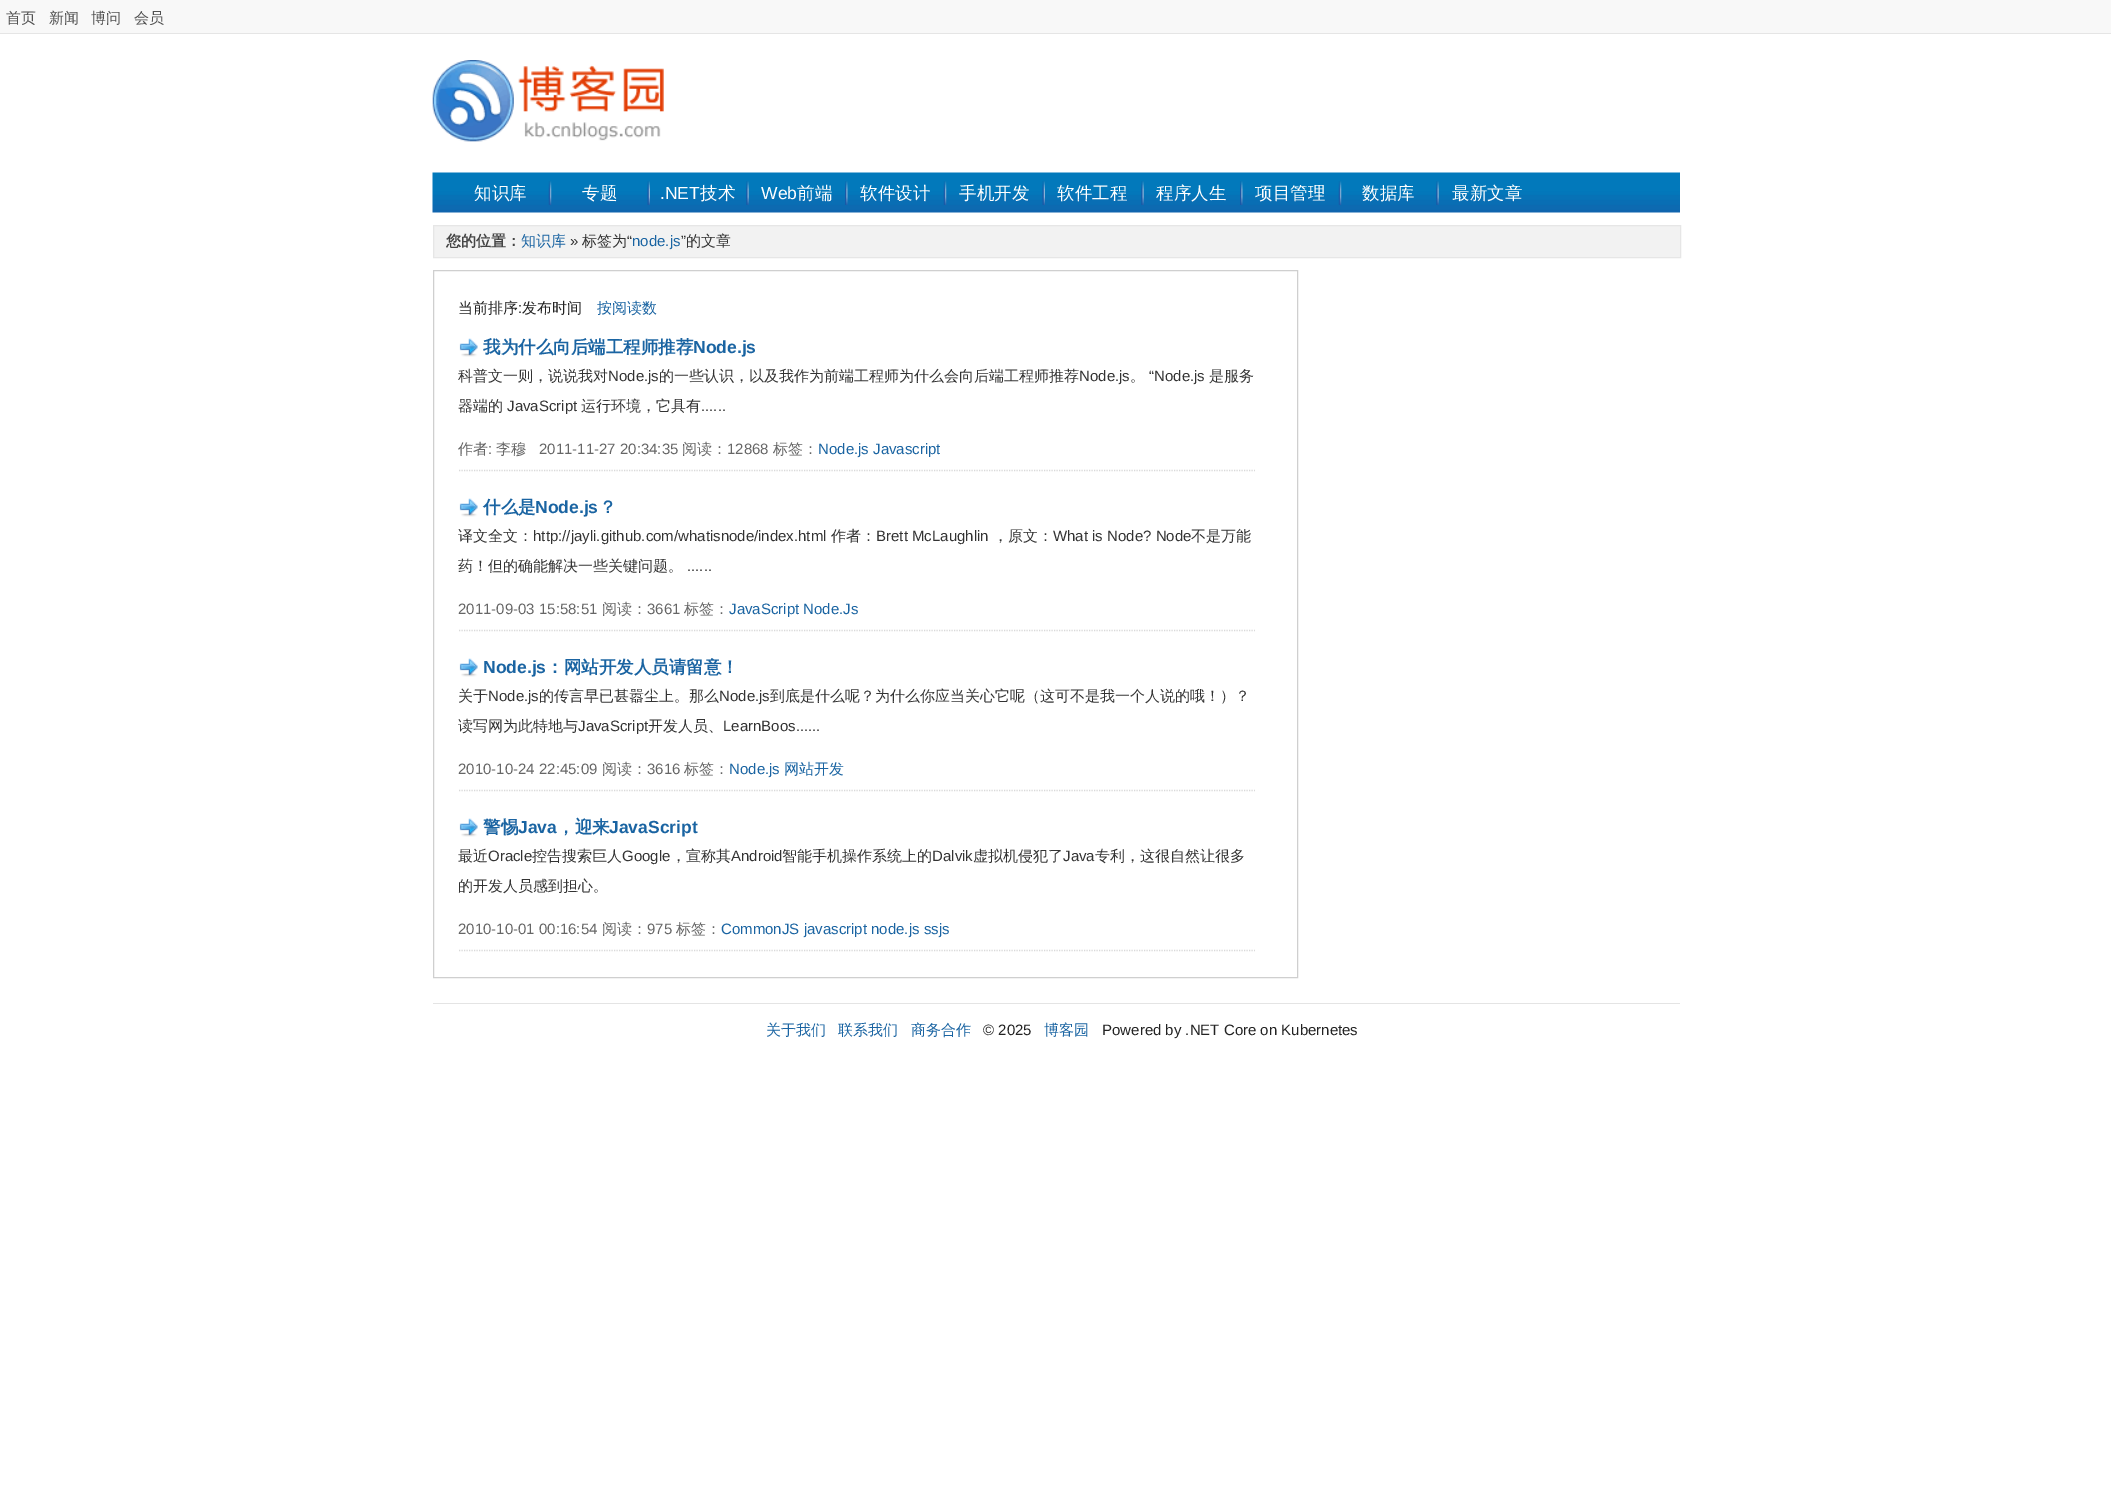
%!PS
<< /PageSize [2111 1507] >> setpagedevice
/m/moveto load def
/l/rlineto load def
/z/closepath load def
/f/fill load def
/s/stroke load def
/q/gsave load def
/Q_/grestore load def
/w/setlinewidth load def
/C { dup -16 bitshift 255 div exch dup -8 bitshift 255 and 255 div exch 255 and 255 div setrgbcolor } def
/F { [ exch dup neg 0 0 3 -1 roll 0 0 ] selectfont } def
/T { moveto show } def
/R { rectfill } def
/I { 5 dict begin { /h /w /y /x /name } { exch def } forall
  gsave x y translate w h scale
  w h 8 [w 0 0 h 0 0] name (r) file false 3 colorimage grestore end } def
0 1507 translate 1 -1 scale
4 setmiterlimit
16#FFFFFF C
0 0 2111 1507 R
16#F8F8F8 C
0 0 2111 33 R
16#E5E5E5 C
0 33 2111 1 R
/WenQuanYiZenHei-Medium 15 F
16#525252 C
(首页) 6 23 T
(新闻) 49 23 T
(博问) 91 23 T
(会员) 134 23 T
(1.rgb) 432 60 232 82 I
(2.rgb) 432 172 1248 41 I
/WenQuanYiZenHei-Medium 17.5 F
16#FFFFFF C
(知识库) 474 199 T
(3.rgb) 548 181 4 24 I
(专题) 582 199 T
(4.rgb) 647 181 3 24 I
/LiberationSans-Regular 17.5 F
(.NET) 660 199 T
/WenQuanYiZenHei-Medium 17.5 F
(技术) 700 199 T
(5.rgb) 746 181 3 24 I
/LiberationSans-Regular 17.5 F
(Web) 761 199 T
/WenQuanYiZenHei-Medium 17.5 F
(前端) 797 199 T
(6.rgb) 845 181 3 24 I
(软件设计) 860 199 T
(3.rgb) 943 181 4 24 I
(手机开发) 959 199 T
(4.rgb) 1042 181 3 24 I
(软件工程) 1057 199 T
(5.rgb) 1141 181 3 24 I
(程序人生) 1156 199 T
(6.rgb) 1240 181 3 24 I
(项目管理) 1255 199 T
(3.rgb) 1338 181 4 24 I
(数据库) 1362 199 T
(5.rgb) 1436 181 3 24 I
(最新文章) 1452 199 T
16#F2F2F2 C
433.5 225.5 m 1247 0 l 0 32 l -1247 0 l z q f Q_
16#E6E6E6 C
s
/WenQuanYiZenHei-Bold 15 F
16#454545 C
(您的位置：) 446 246 T
/WenQuanYiZenHei-Medium 15 F
16#1A64A2 C
(知识库) 521 246 T
16#333333 C
(标签为) 582 246 T
/LiberationSans-Regular 15 F
(“) 627 246 T
16#1A64A2 C
(node.js) 632 246 T
16#333333 C
(”) 681 246 T
/WenQuanYiZenHei-Medium 15 F
(的文章) 686 246 T
/LiberationSans-Regular 15 F
(») 570 246 T
16#CFCFCF C
433.5 270.5 864 707 rectstroke
/WenQuanYiZenHei-Medium 15 F
16#232323 C
(当前排序) 458 313 T
/LiberationSans-Regular 15 F
(:) 518 313 T
/WenQuanYiZenHei-Medium 15 F
(发布时间) 522 313 T
16#1A64A2 C
(按阅读数) 597 313 T
16#D9D9D9 C
1.2 w
[1.25 1.25] 0 setdash
459 470.5 m 796 0 l s
(7.rgb) 459 338 19 19 I
/WenQuanYiZenHei-Bold 17.5 F
16#1A64A2 C
(我为什么向后端工程师推荐) 483 353 T
/LiberationSans-Bold 17.5 F
(Node.js) 693 353 T
/WenQuanYiZenHei-Medium 15 F
16#333333 C
(科普文一则，说说我对) 458 381 T
/LiberationSans-Regular 15 F
(Node.js) 608 381 T
/WenQuanYiZenHei-Medium 15 F
(的一些认识，以及我作为前端工程师为什么会向后端工程师推荐) 659 381 T
/LiberationSans-Regular 15 F
(Node.js) 1079 381 T
/WenQuanYiZenHei-Medium 15 F
(。) 1130 381 T
/LiberationSans-Regular 15 F
(“Node.js) 1149 381 T
/WenQuanYiZenHei-Medium 15 F
(是服务) 1209 381 T
(器端的) 458 411 T
/LiberationSans-Regular 15 F
(JavaScript) 507 411 T
/WenQuanYiZenHei-Medium 15 F
(运行环境，它具有) 581 411 T
/LiberationSans-Regular 15 F
(......) 701 411 T
/WenQuanYiZenHei-Medium 15 F
16#666666 C
(作者) 458 454 T
/LiberationSans-Regular 15 F
(:) 488 454 T
/WenQuanYiZenHei-Medium 15 F
(李穆) 496 454 T
/LiberationSans-Regular 15 F
(2011-11-27 20:34:35) 539 454 T
/WenQuanYiZenHei-Medium 15 F
(阅读：) 682 454 T
/LiberationSans-Regular 15 F
(12868) 727 454 T
/WenQuanYiZenHei-Medium 15 F
(标签：) 773 454 T
/LiberationSans-Regular 15 F
16#1A64A2 C
(Node.js Javascript) 818 454 T
16#D9D9D9 C
459 630.5 m 796 0 l s
(7.rgb) 459 498 19 19 I
/WenQuanYiZenHei-Bold 17.5 F
16#1A64A2 C
(什么是) 483 513 T
/LiberationSans-Bold 17.5 F
(Node.js) 535 513 T
/WenQuanYiZenHei-Bold 17.5 F
(？) 599 513 T
/WenQuanYiZenHei-Medium 15 F
16#333333 C
(译文全文：) 458 541 T
/LiberationSans-Regular 15 F
(http://jayli.github.com/whatisnode/index.html) 533 541 T
/WenQuanYiZenHei-Medium 15 F
(作者：) 831 541 T
/LiberationSans-Regular 15 F
(Brett McLaughlin) 876 541 T
/WenQuanYiZenHei-Medium 15 F
(，原文：) 993 541 T
/LiberationSans-Regular 15 F
(What is Node? Node) 1053 541 T
/WenQuanYiZenHei-Medium 15 F
(不是万能) 1191 541 T
(药！但的确能解决一些关键问题。) 458 571 T
/LiberationSans-Regular 15 F
(......) 687 571 T
16#666666 C
(2011-09-03 15:58:51) 458 614 T
/WenQuanYiZenHei-Medium 15 F
(阅读：) 602 614 T
/LiberationSans-Regular 15 F
(3661) 647 614 T
/WenQuanYiZenHei-Medium 15 F
(标签：) 684 614 T
/LiberationSans-Regular 15 F
16#1A64A2 C
(JavaScript Node.Js) 729 614 T
16#D9D9D9 C
459 790.5 m 796 0 l s
(7.rgb) 459 658 19 19 I
/LiberationSans-Bold 17.5 F
16#1A64A2 C
(Node.js) 483 673 T
/WenQuanYiZenHei-Bold 17.5 F
(：网站开发人员请留意！) 546 673 T
/WenQuanYiZenHei-Medium 15 F
16#333333 C
(关于) 458 701 T
/LiberationSans-Regular 15 F
(Node.js) 488 701 T
/WenQuanYiZenHei-Medium 15 F
(的传言早已甚嚣尘上。那么) 539 701 T
/LiberationSans-Regular 15 F
(Node.js) 719 701 T
/WenQuanYiZenHei-Medium 15 F
(到底是什么呢？为什么你应当关心它呢（这可不是我一个人说的哦！）？) 770 701 T
(读写网为此特地与) 458 731 T
/LiberationSans-Regular 15 F
(JavaScript) 578 731 T
/WenQuanYiZenHei-Medium 15 F
(开发人员、) 648 731 T
/LiberationSans-Regular 15 F
(LearnBoos......) 723 731 T
16#666666 C
(2010-10-24 22:45:09) 458 774 T
/WenQuanYiZenHei-Medium 15 F
(阅读：) 602 774 T
/LiberationSans-Regular 15 F
(3616) 647 774 T
/WenQuanYiZenHei-Medium 15 F
(标签：) 684 774 T
/LiberationSans-Regular 15 F
16#1A64A2 C
(Node.js) 729 774 T
/WenQuanYiZenHei-Medium 15 F
(网站开发) 784 774 T
16#D9D9D9 C
459 950.5 m 796 0 l s
(7.rgb) 459 818 19 19 I
/WenQuanYiZenHei-Bold 17.5 F
16#1A64A2 C
(警惕) 483 833 T
/LiberationSans-Bold 17.5 F
(Java) 518 833 T
/WenQuanYiZenHei-Bold 17.5 F
(，迎来) 557 833 T
/LiberationSans-Bold 17.5 F
(JavaScript) 609 833 T
/WenQuanYiZenHei-Medium 15 F
16#333333 C
(最近) 458 861 T
/LiberationSans-Regular 15 F
(Oracle) 488 861 T
/WenQuanYiZenHei-Medium 15 F
(控告搜索巨人) 532 861 T
/LiberationSans-Regular 15 F
(Google) 622 861 T
/WenQuanYiZenHei-Medium 15 F
(，宣称其) 671 861 T
/LiberationSans-Regular 15 F
(Android) 731 861 T
/WenQuanYiZenHei-Medium 15 F
(智能手机操作系统上的) 782 861 T
/LiberationSans-Regular 15 F
(Dalvik) 932 861 T
/WenQuanYiZenHei-Medium 15 F
(虚拟机侵犯了) 973 861 T
/LiberationSans-Regular 15 F
(Java) 1063 861 T
/WenQuanYiZenHei-Medium 15 F
(专利，这很自然让很多) 1095 861 T
(的开发人员感到担心。) 458 891 T
/LiberationSans-Regular 15 F
16#666666 C
(2010-10-01 00:16:54) 458 934 T
/WenQuanYiZenHei-Medium 15 F
(阅读：) 602 934 T
/LiberationSans-Regular 15 F
(975) 647 934 T
/WenQuanYiZenHei-Medium 15 F
(标签：) 676 934 T
/LiberationSans-Regular 15 F
16#1A64A2 C
(CommonJS javascript node.js ssjs) 721 934 T
16#E4E4E4 C
433 1003 1247 1 R
/WenQuanYiZenHei-Medium 15 F
16#1A64A2 C
(关于我们) 766 1035 T
(联系我们) 838 1035 T
(商务合作) 911 1035 T
/LiberationSans-Regular 15 F
16#232323 C
(© 2025) 983 1035 T
/WenQuanYiZenHei-Medium 15 F
16#1A64A2 C
(博客园) 1044 1035 T
/LiberationSans-Regular 15 F
16#232323 C
(Powered by .NET Core on Kubernetes) 1102 1035 T
showpage
